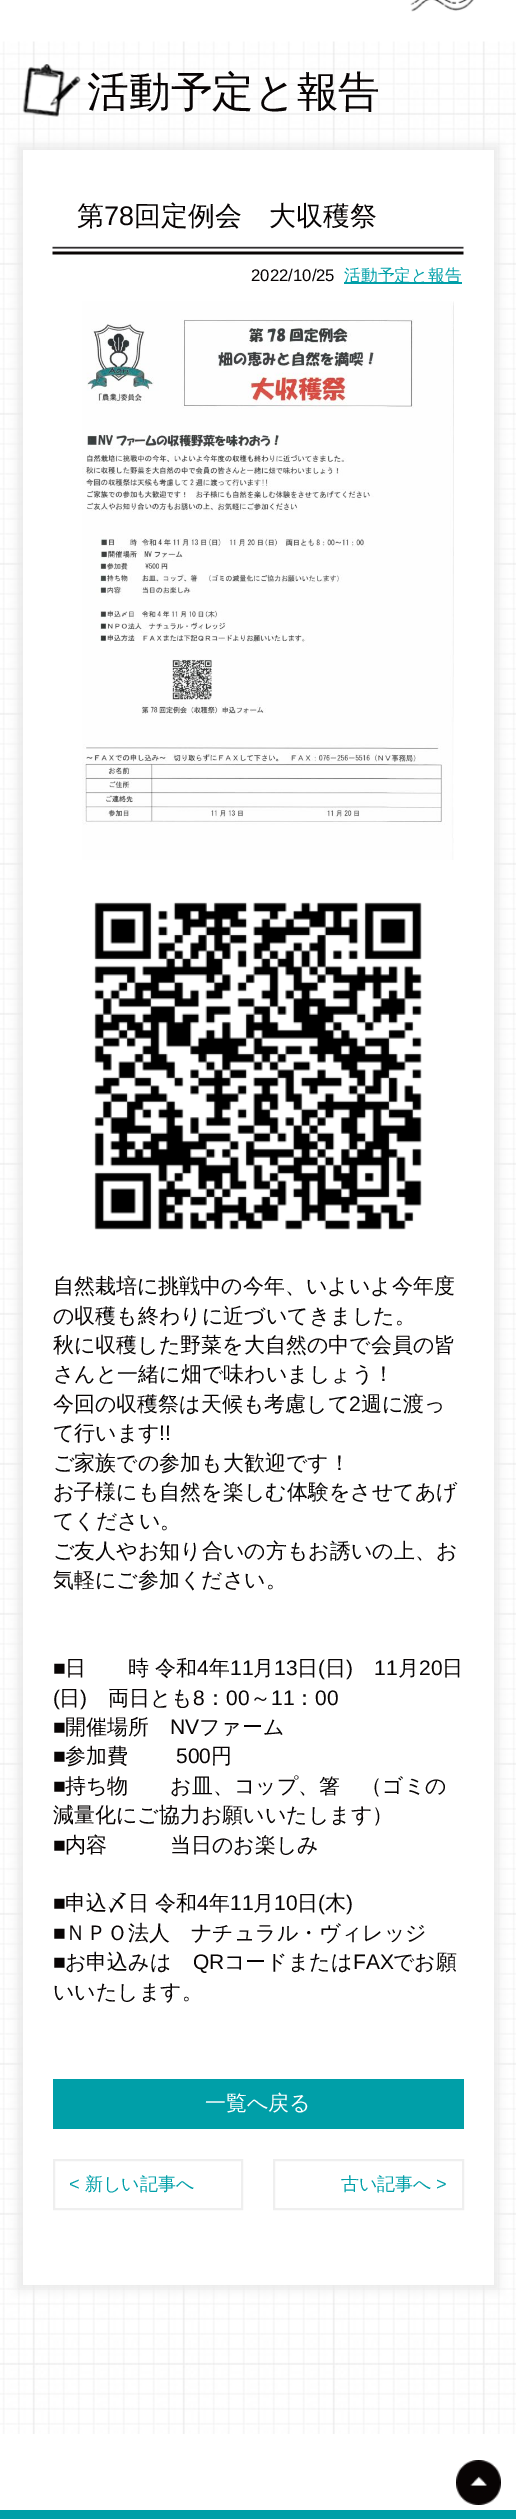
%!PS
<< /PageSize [516 2519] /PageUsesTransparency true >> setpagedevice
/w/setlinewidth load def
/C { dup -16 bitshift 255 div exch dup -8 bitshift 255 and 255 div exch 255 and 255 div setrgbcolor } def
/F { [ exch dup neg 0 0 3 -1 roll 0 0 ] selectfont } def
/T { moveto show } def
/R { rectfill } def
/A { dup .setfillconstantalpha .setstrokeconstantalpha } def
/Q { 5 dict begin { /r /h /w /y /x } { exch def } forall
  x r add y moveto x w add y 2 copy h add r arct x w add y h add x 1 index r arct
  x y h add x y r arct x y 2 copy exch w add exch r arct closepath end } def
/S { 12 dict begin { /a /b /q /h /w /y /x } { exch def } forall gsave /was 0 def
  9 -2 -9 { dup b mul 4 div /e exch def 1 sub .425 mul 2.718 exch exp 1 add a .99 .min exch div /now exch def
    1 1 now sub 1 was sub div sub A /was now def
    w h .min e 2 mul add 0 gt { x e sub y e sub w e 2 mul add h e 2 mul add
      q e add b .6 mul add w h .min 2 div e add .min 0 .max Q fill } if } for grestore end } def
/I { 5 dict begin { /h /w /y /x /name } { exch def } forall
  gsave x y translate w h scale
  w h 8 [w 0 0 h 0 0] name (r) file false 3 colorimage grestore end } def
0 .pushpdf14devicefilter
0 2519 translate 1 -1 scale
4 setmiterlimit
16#FFFFFF C
0 0 516 2519 R
(1.rgb) 410 0 64 12 I
(2.rgb) 0 41 516 2393 I
(3.rgb) 22 64 59 53 I
/WenQuanYiZenHei-Medium 41.75 F
16#080404 C
(活動予定と報告) 87 106 T
16#E9E9E9 C
18 146 480 2143 0 4.5 1 S
16#FFFFFF C
23 150 471 2135 R
(4.rgb) 52 246 412 9 I
/WenQuanYiZenHei-Medium 27 F
16#080404 C
(第) 77 225 T
/LiberationSans-Regular 27 F
(78) 104 225 T
/WenQuanYiZenHei-Medium 27 F
(回定例会　大収穫祭) 134 225 T
/LiberationSans-Regular 16.75 F
(2022/10/25) 251 281 T
16#009FA8 C
344 282 118 2 R
/WenQuanYiZenHei-Medium 16.75 F
(活動予定と報告) 344 281 T
(5.rgb) 82 301 372 559 I
(6.rgb) 94 902 328 328 I
/WenQuanYiZenHei-Medium 21 F
16#080404 C
(自然栽培に挑戦中の今年、いよいよ今年度) 53 1293 T
(の収穫も終わりに近づいてきました。) 53 1323 T
(秋に収穫した野菜を大自然の中で会員の皆) 53 1352 T
(さんと一緒に畑で味わいましょう！) 53 1381 T
(今回の収穫祭は天候も考慮して) 53 1411 T
/LiberationSans-Regular 21 F
(2) 349 1411 T
/WenQuanYiZenHei-Medium 21 F
(週に渡っ) 361 1411 T
(て行います) 53 1440 T
/LiberationSans-Regular 21 F
(!!) 159 1440 T
/WenQuanYiZenHei-Medium 21 F
(ご家族での参加も大歓迎です！) 53 1470 T
(お子様にも自然を楽しむ体験をさせてあげ) 53 1499 T
(てください。) 53 1528 T
(ご友人やお知り合いの方もお誘いの上、お) 53 1558 T
(気軽にご参加ください。) 53 1587 T
/LiberationSans-Regular 21 F
(■) 53 1675 T
/WenQuanYiZenHei-Medium 21 F
(日　　時 令和) 65 1675 T
/LiberationSans-Regular 21 F
(4) 197 1675 T
/WenQuanYiZenHei-Medium 21 F
(年) 209 1675 T
/LiberationSans-Regular 21 F
(11) 230 1675 T
/WenQuanYiZenHei-Medium 21 F
(月) 253 1675 T
/LiberationSans-Regular 21 F
(13) 274 1675 T
/WenQuanYiZenHei-Medium 21 F
(日) 297 1675 T
/LiberationSans-Regular 21 F
(\() 318 1675 T
/WenQuanYiZenHei-Medium 21 F
(日) 325 1675 T
/LiberationSans-Regular 21 F
(\)) 346 1675 T
(11) 374 1675 T
/WenQuanYiZenHei-Medium 21 F
(月) 398 1675 T
/LiberationSans-Regular 21 F
(20) 419 1675 T
/WenQuanYiZenHei-Medium 21 F
(日) 442 1675 T
/LiberationSans-Regular 21 F
(\() 53 1705 T
/WenQuanYiZenHei-Medium 21 F
(日) 59 1705 T
/LiberationSans-Regular 21 F
(\)) 80 1705 T
/WenQuanYiZenHei-Medium 21 F
(両日とも) 108 1705 T
/LiberationSans-Regular 21 F
(8) 193 1705 T
/WenQuanYiZenHei-Medium 21 F
(：) 205 1705 T
/LiberationSans-Regular 21 F
(00) 226 1705 T
/WenQuanYiZenHei-Medium 21 F
(～) 250 1705 T
/LiberationSans-Regular 21 F
(11) 271 1705 T
/WenQuanYiZenHei-Medium 21 F
(：) 294 1705 T
/LiberationSans-Regular 21 F
(00) 315 1705 T
(■) 53 1734 T
/WenQuanYiZenHei-Medium 21 F
(開催場所) 65 1734 T
/LiberationSans-Regular 21 F
(NV) 170 1734 T
/WenQuanYiZenHei-Medium 21 F
(ファーム) 199 1734 T
/LiberationSans-Regular 21 F
(■) 53 1763 T
/WenQuanYiZenHei-Medium 21 F
(参加費) 65 1763 T
/LiberationSans-Regular 21 F
(500) 176 1763 T
/WenQuanYiZenHei-Medium 21 F
(円) 211 1763 T
/LiberationSans-Regular 21 F
(■) 53 1793 T
/WenQuanYiZenHei-Medium 21 F
(持ち物　　お皿、コップ、箸　（ゴミの) 65 1793 T
(減量化にご協力お願いいたします）) 53 1822 T
/LiberationSans-Regular 21 F
(■) 53 1852 T
/WenQuanYiZenHei-Medium 21 F
(内容　　　当日のお楽しみ) 65 1852 T
/LiberationSans-Regular 21 F
(■) 53 1910 T
/WenQuanYiZenHei-Medium 21 F
(申込〆日 令和) 65 1910 T
/LiberationSans-Regular 21 F
(4) 197 1910 T
/WenQuanYiZenHei-Medium 21 F
(年) 209 1910 T
/LiberationSans-Regular 21 F
(11) 230 1910 T
/WenQuanYiZenHei-Medium 21 F
(月) 253 1910 T
/LiberationSans-Regular 21 F
(10) 274 1910 T
/WenQuanYiZenHei-Medium 21 F
(日) 297 1910 T
/LiberationSans-Regular 21 F
(\() 318 1910 T
/WenQuanYiZenHei-Medium 21 F
(木) 325 1910 T
/LiberationSans-Regular 21 F
(\)) 346 1910 T
(■) 53 1940 T
/WenQuanYiZenHei-Medium 21 F
(ＮＰＯ法人　ナチュラル・ヴィレッジ) 65 1940 T
/LiberationSans-Regular 21 F
(■) 53 1969 T
/WenQuanYiZenHei-Medium 21 F
(お申込みは) 65 1969 T
/LiberationSans-Regular 21 F
(QR) 193 1969 T
/WenQuanYiZenHei-Medium 21 F
(コードまたは) 224 1969 T
/LiberationSans-Regular 21 F
(FAX) 353 1969 T
/WenQuanYiZenHei-Medium 21 F
(でお願) 393 1969 T
(いいたします。) 53 1999 T
16#009FA8 C
53 2079 411 50 R
16#FFFFFF C
(一覧へ戻る) 205 2110 T
16#EFEFEF C
2 w
54 2160 188 49 rectstroke
/LiberationSans-Regular 18 F
16#009FA8 C
(<) 69 2190 T
/WenQuanYiZenHei-Medium 18 F
(新しい記事へ) 85 2190 T
16#EFEFEF C
274 2160 189 49 rectstroke
16#009FA8 C
(古い記事へ) 341 2190 T
/LiberationSans-Regular 18 F
(>) 436 2190 T
(7.rgb) 456 2460 45 45 I
0 2510 516 9 R
.poppdf14devicefilter showpage
